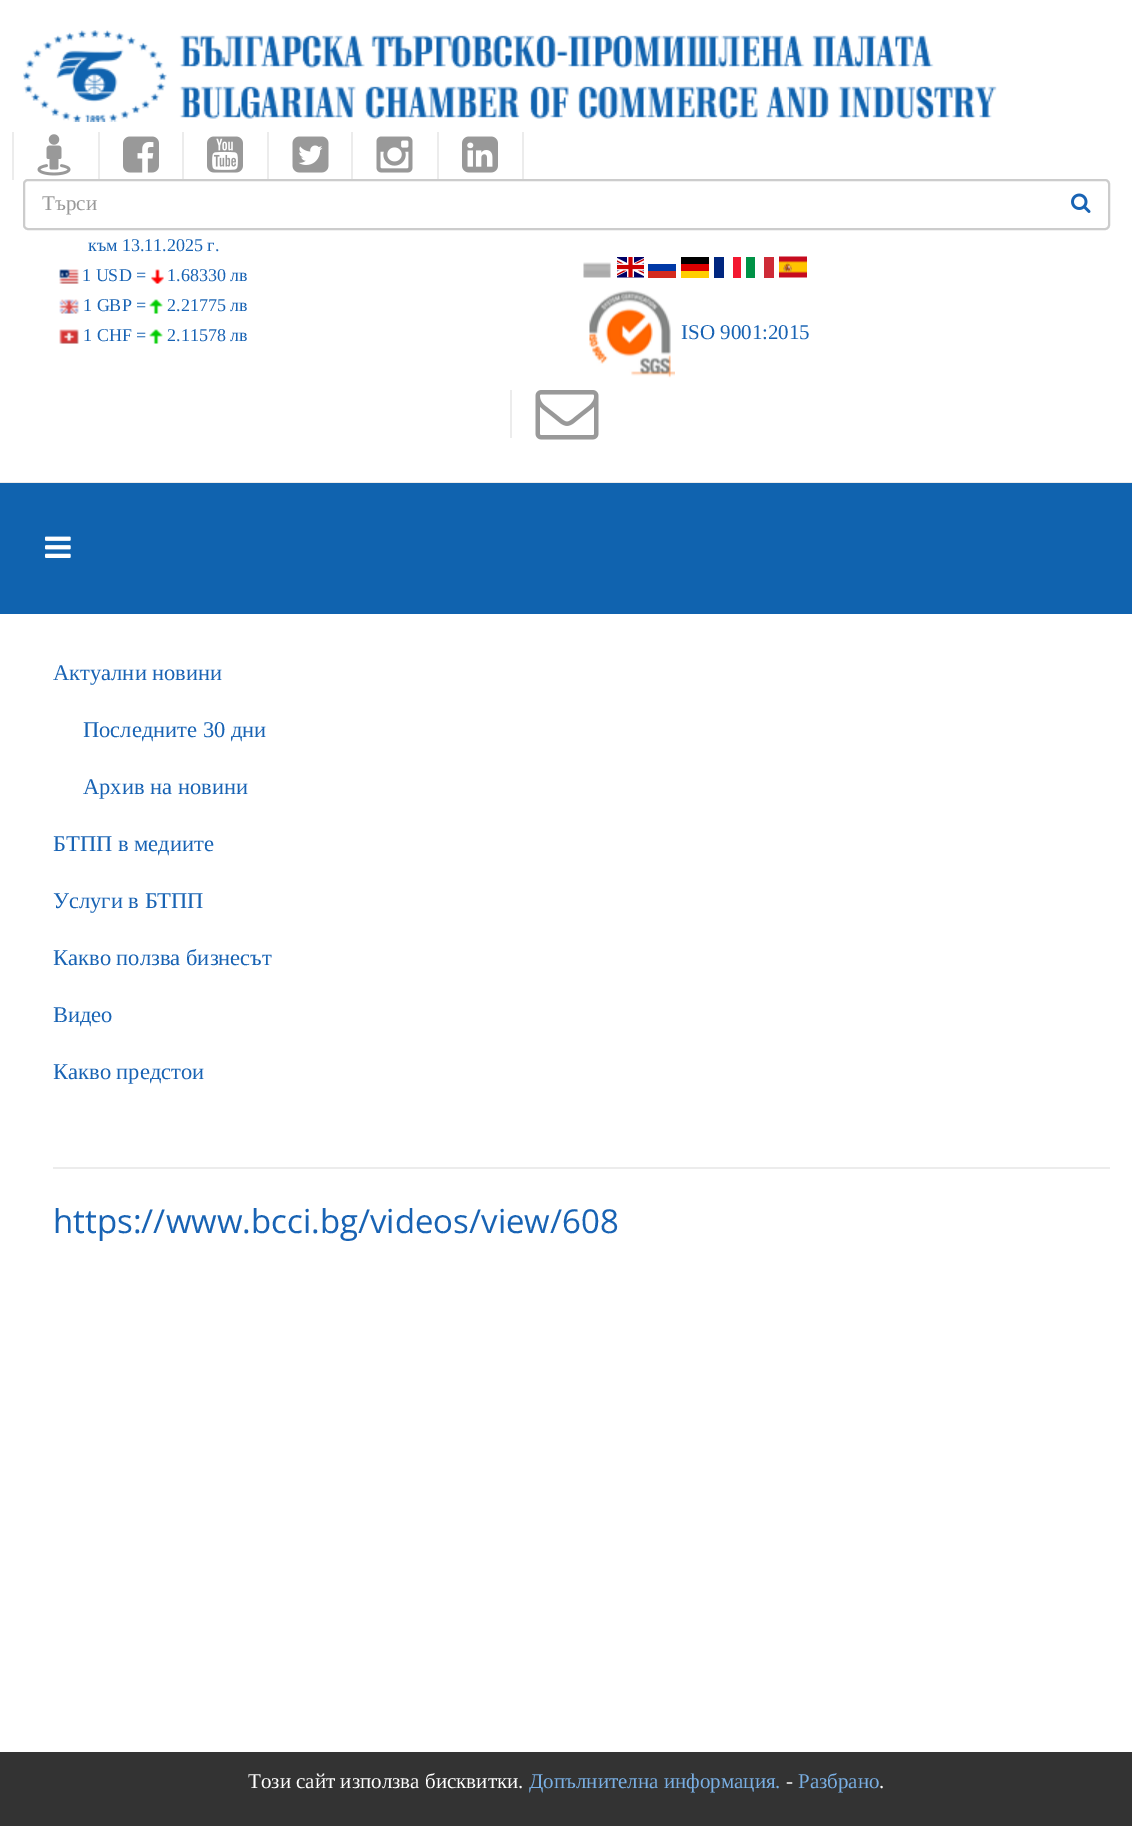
%!PS
<< /PageSize [1132 1826] >> setpagedevice
/f/fill load def
/s/stroke load def
/q/gsave load def
/Q_/grestore load def
/w/setlinewidth load def
/C { dup -16 bitshift 255 div exch dup -8 bitshift 255 and 255 div exch 255 and 255 div setrgbcolor } def
/F { [ exch dup neg 0 0 3 -1 roll 0 0 ] selectfont } def
/T { moveto show } def
/R { rectfill } def
/Q { 5 dict begin { /r /h /w /y /x } { exch def } forall
  x r add y moveto x w add y 2 copy h add r arct x w add y h add x 1 index r arct
  x y h add x y r arct x y 2 copy exch w add exch r arct closepath end } def
/I { 5 dict begin { /h /w /y /x /name } { exch def } forall
  gsave x y translate w h scale
  w h 8 [w 0 0 h 0 0] name (r) file false 3 colorimage grestore end } def
0 1826 translate 1 -1 scale
4 setmiterlimit
16#FFFFFF C
0 0 1132 1826 R
16#ECECEC C
0 482 1132 1 R
(1.rgb) 23 30 974 92 I
12 132 2 48 R
(2.rgb) 37 134 34 42 I
98 132 2 48 R
(3.rgb) 123 136 36 37 I
182 132 2 48 R
(4.rgb) 207 136 36 37 I
267 132 2 48 R
(5.rgb) 292 136 37 37 I
351 132 2 48 R
(6.rgb) 376 136 37 37 I
522 132 2 48 R
437 132 2 48 R
(7.rgb) 462 136 36 37 I
16#FFFFFF C
24 180 1085 49 4 Q q f Q_
16#CCCCCC C
2 w
s
/LiberationSerif-Regular 21 F
16#999999 C
(Търси) 42 210 T
(8.rgb) 1071 193 20 20 I
/LiberationSerif-Regular 18 F
16#1863B4 C
(към 13.11.2025 г.) 88 251 T
(9.rgb) 59 269 20 15 I
(1 USD =) 82 281 T
(10.rgb) 151 269 13 15 I
(1.68330 лв) 167 281 T
(11.rgb) 59 299 20 15 I
(1 GBP =) 83 311 T
(12.rgb) 149 299 14 15 I
(2.21775 лв) 167 311 T
(13.rgb) 59 329 20 15 I
(1 CHF =) 83 341 T
(14.rgb) 149 329 14 15 I
(2.11578 лв) 167 341 T
(15.rgb) 583 262 28 16 I
(16.rgb) 617 257 27 21 I
16#0039A6 C
648 264 28 7 R
16#D52B1E C
648 271 28 7 R
16#FFCE00 C
681 271 28 7 R
16#000000 C
681 257 28 7 R
16#DD0000 C
681 264 28 7 R
16#00267F C
714 257 10 21 R
16#F31830 C
733 257 8 21 R
16#009246 C
746 257 9 21 R
16#CE2B37 C
764 257 10 21 R
(17.rgb) 779 256 28 22 I
(18.rgb) 589 290 86 88 I
/LiberationSerif-Regular 21 F
16#1863B4 C
(ISO 9001:2015) 681 339 T
16#ECECEC C
510 390 2 48 R
(19.rgb) 535 390 64 50 I
16#1063AF C
0 483 1132 131 R
(20.rgb) 45 536 26 22 I
16#ECECEC C
53 1167 1057 2 R
/LiberationSerif-Regular 22.5 F
16#1863B4 C
(Актуални новини) 53 680 T
(Последните 30 дни) 83 737 T
(Архив на новини) 83 794 T
(БTПП в медиите) 53 851 T
(Услуги в БТПП) 53 908 T
(Какво ползва бизнесът) 53 965 T
(Видео) 53 1022 T
(Какво предстои) 53 1079 T
/OpenSans-Regular 33 F
(https://www.bcci.bg/videos/view/608) 53 1233 T
16#333333 C
0 1752 1132 74 R
/LiberationSerif-Regular 21 F
16#FFFFFF C
(Този сайт използва бисквитки.) 248 1788 T
16#79AFE4 C
(Допълнителна информация.) 529 1788 T
16#FFFFFF C
(-) 786 1788 T
16#79AFE4 C
(Разбрано) 798 1788 T
16#FFFFFF C
(.) 879 1788 T
showpage
